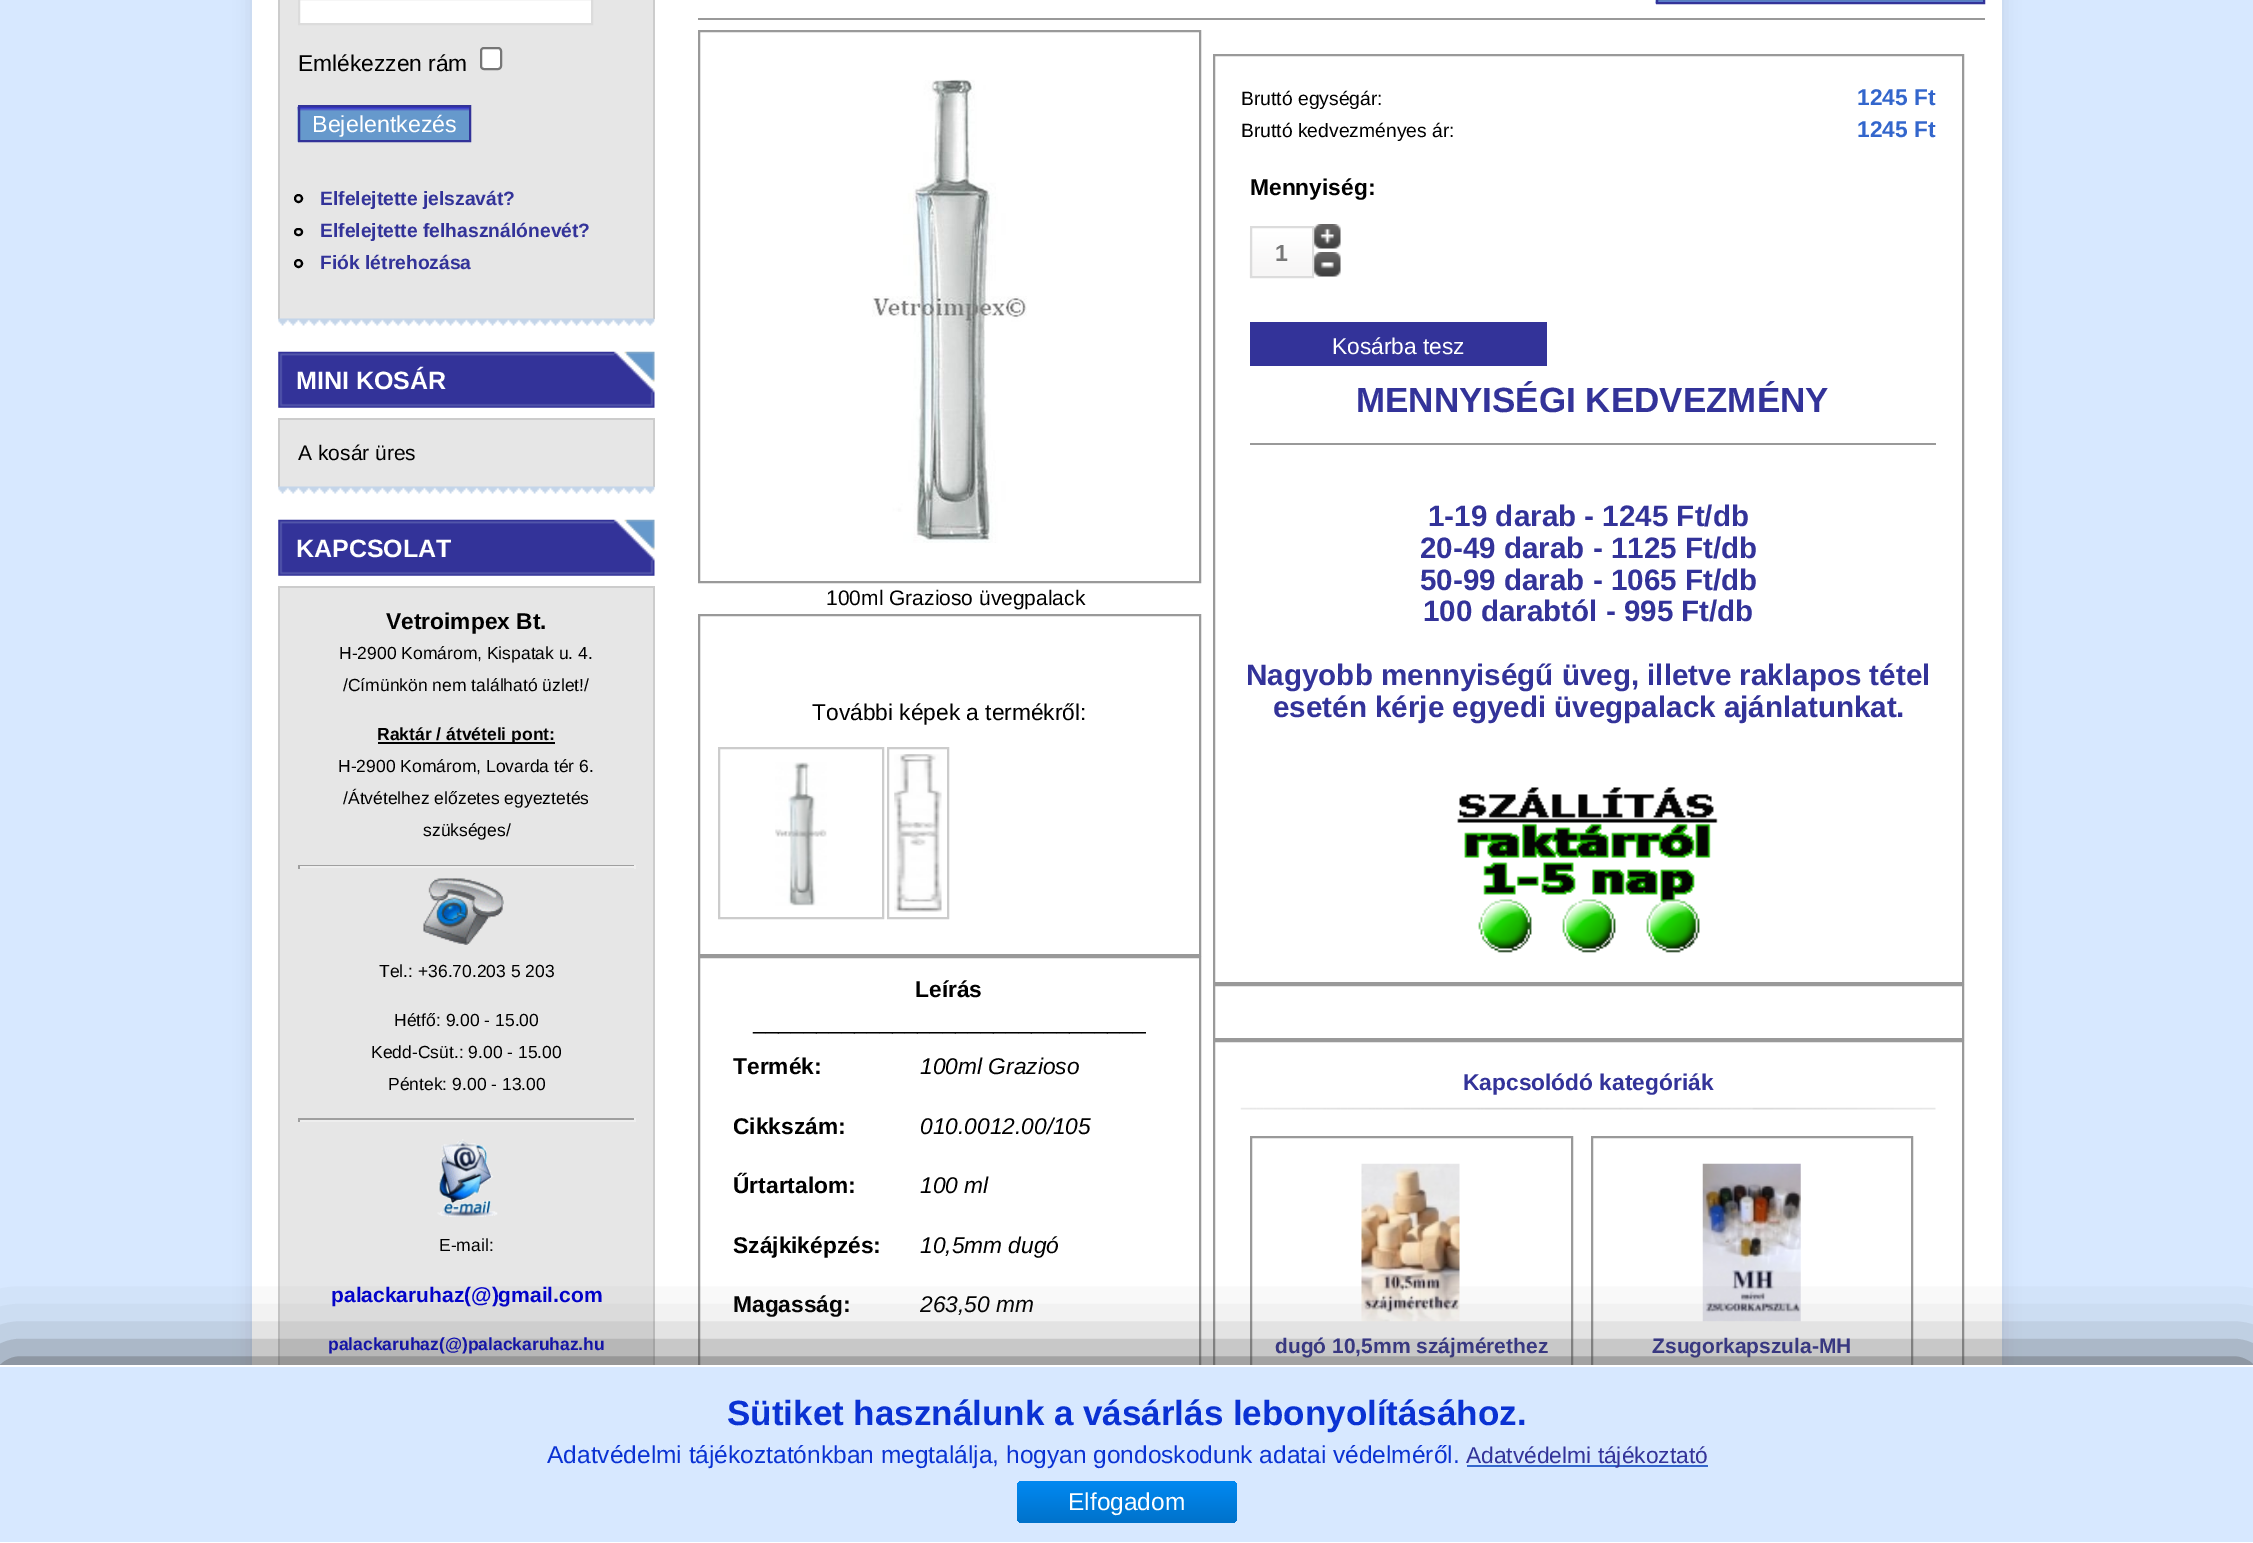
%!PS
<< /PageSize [2253 1543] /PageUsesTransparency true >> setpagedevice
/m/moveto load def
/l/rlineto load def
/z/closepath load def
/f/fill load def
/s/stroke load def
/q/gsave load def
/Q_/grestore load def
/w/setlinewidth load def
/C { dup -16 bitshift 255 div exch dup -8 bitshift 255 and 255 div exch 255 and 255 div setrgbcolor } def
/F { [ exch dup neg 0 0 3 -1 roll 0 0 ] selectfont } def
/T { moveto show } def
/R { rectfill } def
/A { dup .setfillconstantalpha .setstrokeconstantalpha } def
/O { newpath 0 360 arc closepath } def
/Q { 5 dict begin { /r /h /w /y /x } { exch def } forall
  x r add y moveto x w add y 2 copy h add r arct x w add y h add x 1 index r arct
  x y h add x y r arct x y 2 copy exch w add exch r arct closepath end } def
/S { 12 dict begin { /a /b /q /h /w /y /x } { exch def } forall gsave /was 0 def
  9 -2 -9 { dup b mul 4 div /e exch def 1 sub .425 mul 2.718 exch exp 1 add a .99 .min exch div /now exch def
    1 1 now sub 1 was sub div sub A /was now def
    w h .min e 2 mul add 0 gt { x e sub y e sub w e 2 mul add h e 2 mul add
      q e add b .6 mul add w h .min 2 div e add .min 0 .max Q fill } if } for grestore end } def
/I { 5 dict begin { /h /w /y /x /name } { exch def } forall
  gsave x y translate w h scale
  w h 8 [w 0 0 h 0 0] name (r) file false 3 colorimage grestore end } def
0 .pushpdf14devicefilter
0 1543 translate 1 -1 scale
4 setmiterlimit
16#D7E8FF C
0 0 2253 1543 R
16#000000 C
252 -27 1750 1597 0 9 .1 S
16#FFFFFF C
252 0 1750 1365 R
16#E6E6E6 C
280 0 373 319 R
16#CCCCCC C
653 0 2 319 R
278 0 2 319 R
16#FFFFFF C
299 -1 m 293 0 l 0 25 l -293 0 l z q f Q_
16#DCDCDC C
2 w
s
/LiberationSans-Regular 22.75 F
16#000000 C
(Emlékezzen rám) 298 71 T
16#FFFFFF C
481 48 20 21 3 Q q f Q_
16#767676 C
s
(1.rgb) 297 106 172 36 I
16#333399 C
299 106 171 35 rectstroke
/LiberationSans-Regular 23.25 F
16#FFFFFF C
(Bejelentkezés) 312 132 T
16#000000 C
298.5 198.5 3.5 O s
/LiberationSans-Bold 19.3 F
16#333399 C
(Elfelejtette jelszavát?) 320 205 T
16#000000 C
295 229 7 6 3 Q s
16#333399 C
(Elfelejtette felhasználónevét?) 320 237 T
16#000000 C
298.5 263.5 3.5 O s
16#333399 C
(Fiók létrehozása) 320 269 T
(2.rgb) 278 318 377 8 I
(3.rgb) 278 351 377 57 I
/LiberationSans-Bold 25 F
16#FFFFFF C
(MINI KOSÁR) 296 389 T
16#E6E6E6 C
280 420 373 67 R
16#CCCCCC C
278 418 377 2 R
653 418 2 69 R
278 418 2 69 R
/LiberationSans-Regular 21 F
16#000000 C
(A kosár üres) 298 460 T
(2.rgb) 278 486 377 8 I
(3.rgb) 278 519 377 57 I
/LiberationSans-Bold 25 F
16#FFFFFF C
(KAPCSOLAT) 296 557 T
16#E6E6E6 C
280 588 373 777 R
16#CCCCCC C
278 586 377 2 R
653 586 2 779 R
278 586 2 779 R
/LiberationSans-Bold 22.75 F
16#000000 C
(Vetroimpex Bt.) 386 629 T
/LiberationSans-Regular 17.5 F
(H-2900 Komárom, Kispatak u. 4.) 339 659 T
(/Címünkön nem található üzlet!/) 343 691 T
378 742 177 2 R
/LiberationSans-Bold 17.5 F
(Raktár / átvételi pont:) 377 740 T
/LiberationSans-Regular 17.5 F
(H-2900 Komárom, Lovarda tér 6.) 338 772 T
(/Átvételhez előzetes egyeztetés) 343 804 T
(szükséges/) 423 836 T
16#9F9F9F C
298 865 337 1 R
16#EEEEEE C
634 865 2 4 R
298 866 337 2 R
16#9F9F9F C
298 865 2 4 R
(4.rgb) 423 878 81 67 I
16#000000 C
(Tel.: +36.70.203 5 203) 379 977 T
(Hétfő: 9.00 - 15.00) 394 1026 T
(Kedd-Csüt.: 9.00 - 15.00) 371 1058 T
(Péntek: 9.00 - 13.00) 388 1090 T
16#9F9F9F C
298 1118 337 2 R
16#EEEEEE C
634 1118 2 4 R
298 1120 337 2 R
16#9F9F9F C
298 1118 2 4 R
(5.rgb) 437 1139 61 78 I
16#000000 C
(E-mail:) 439 1251 T
/LiberationSans-Bold 21 F
16#0000CD C
(palackaruhaz\(@\)gmail.com) 331 1302 T
/LiberationSans-Bold 17.5 F
(palackaruhaz\(@\)palackaruhaz.hu) 328 1350 T
(6.rgb) 1655 0 328 4 I
16#333399 C
1657 -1 327 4 rectstroke
16#999999 C
698 18 1287 2 R
699 31 501 551 rectstroke
(7.rgb) 872 79 155 464 I
/LiberationSans-Regular 21 F
16#000000 C
(100ml Grazioso üvegpalack) 826 605 T
16#999999 C
699 615 501 340 rectstroke
/LiberationSans-Regular 22.75 F
16#000000 C
(További képek a termékről:) 812 720 T
16#CCCCCC C
719 748 164 170 rectstroke
(8.rgb) 775 762 52 144 I
888 748 60 170 rectstroke
(9.rgb) 894 754 48 158 I
16#999999 C
699 957 501 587 rectstroke
/LiberationSans-Bold 22.75 F
16#000000 C
(Leírás) 915 997 T
/LiberationSans-Regular 22.75 F
(_______________________________) 753 1029 T
/LiberationSans-Bold 22.75 F
(Termék:) 733 1074 T
/LiberationSans-Italic 22.75 F
(100ml Grazioso) 920 1074 T
/LiberationSans-Bold 22.75 F
(Cikkszám:) 733 1134 T
/LiberationSans-Italic 22.75 F
(010.0012.00/105) 920 1134 T
/LiberationSans-Bold 22.75 F
(Űrtartalom:) 733 1193 T
/LiberationSans-Italic 22.75 F
(100 ml) 920 1193 T
/LiberationSans-Bold 22.75 F
(Szájkiképzés:) 733 1253 T
/LiberationSans-Italic 22.75 F
(10,5mm dugó) 920 1253 T
/LiberationSans-Bold 22.75 F
(Magasság:) 733 1312 T
/LiberationSans-Italic 22.75 F
(263,50 mm) 920 1312 T
16#999999 C
1214 55 749 928 rectstroke
/LiberationSans-Regular 19.3 F
16#000000 C
(Bruttó egységár:) 1241 105 T
/LiberationSans-Bold 22.75 F
16#3366CC C
(1245 Ft) 1857 105 T
/LiberationSans-Regular 19.3 F
16#000000 C
(Bruttó kedvezményes ár:) 1241 137 T
/LiberationSans-Bold 22.75 F
16#3366CC C
(1245 Ft) 1857 137 T
16#000000 C
(Mennyiség:) 1250 195 T
(10.rgb) 1249 227 63 51 I
16#DCDCDC C
1251 227 62 50 rectstroke
/LiberationSans-Bold 23.25 F
16#777777 C
(1) 1275 261 T
(11.rgb) 1314 224 27 25 I
(12.rgb) 1314 252 27 25 I
16#333399 C
1250 322 297 44 R
/LiberationSans-Regular 22.75 F
16#FFFFFF C
(Kosárba tesz) 1332 354 T
16#999999 C
1250 443 686 2 R
/LiberationSans-Bold 35 F
16#333399 C
(MENNYISÉGI KEDVEZMÉNY) 1356 412 T
/LiberationSans-Bold 29.6 F
(1-19 darab - 1245 Ft/db) 1428 526 T
(20-49 darab - 1125 Ft/db) 1420 558 T
(50-99 darab - 1065 Ft/db) 1420 590 T
(100 darabtól - 995 Ft/db) 1423 621 T
(Nagyobb mennyiségű üveg, illetve raklapos tétel) 1246 685 T
(esetén kérje egyedi üvegpalack ajánlatunkat.) 1273 717 T
(13.rgb) 1457 787 261 166 I
16#999999 C
1214 985 749 54 rectstroke
1214 1041 749 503 rectstroke
(14.rgb) 1240 1107 696 3 I
/LiberationSans-Bold 22.75 F
16#333399 C
(Kapcsolódó kategóriák) 1463 1090 T
16#999999 C
1251 1137 321 308 rectstroke
(15.rgb) 1361 1163 99 159 I
/LiberationSans-Bold 21 F
16#333399 C
(dugó 10,5mm szájmérethez) 1275 1353 T
16#999999 C
1592 1137 320 308 rectstroke
(16.rgb) 1702 1163 99 159 I
16#333399 C
(Zsugorkapszula-MH) 1652 1353 T
16#444444 C
0 1365 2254 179 0 35 1 S
16#D7E8FF C
0 1367 2253 175 R
16#FFFFFF C
0 1365 2253 2 R
0 1542 2253 1 R
/LiberationSans-Bold 35 F
16#0A32D3 C
(Sütiket használunk a vásárlás lebonyolításához.) 727 1425 T
/LiberationSans-Regular 24.5 F
(Adatvédelmi tájékoztatónkban megtalálja, hogyan gondoskodunk adatai védelméről.) 547 1463 T
16#3366CC C
1467 1465 241 2 R
/LiberationSans-Regular 22.75 F
16#333399 C
(Adatvédelmi tájékoztató) 1466 1463 T
q 1017 1481 220 42 5 Q clip newpath
<< /ShadingType 2 /ColorSpace /DeviceRGB /Coords [1127 1481 1127 1523] /Extend [true true] /Function << /FunctionType 2 /Domain [0 1] /C0 [0 .537 .949] /C1 [0 .447 .792] /N 1 >> >> shfill Q_
/LiberationSans-Regular 24.5 F
16#FFFFFF C
(Elfogadom) 1068 1510 T
.poppdf14devicefilter showpage
